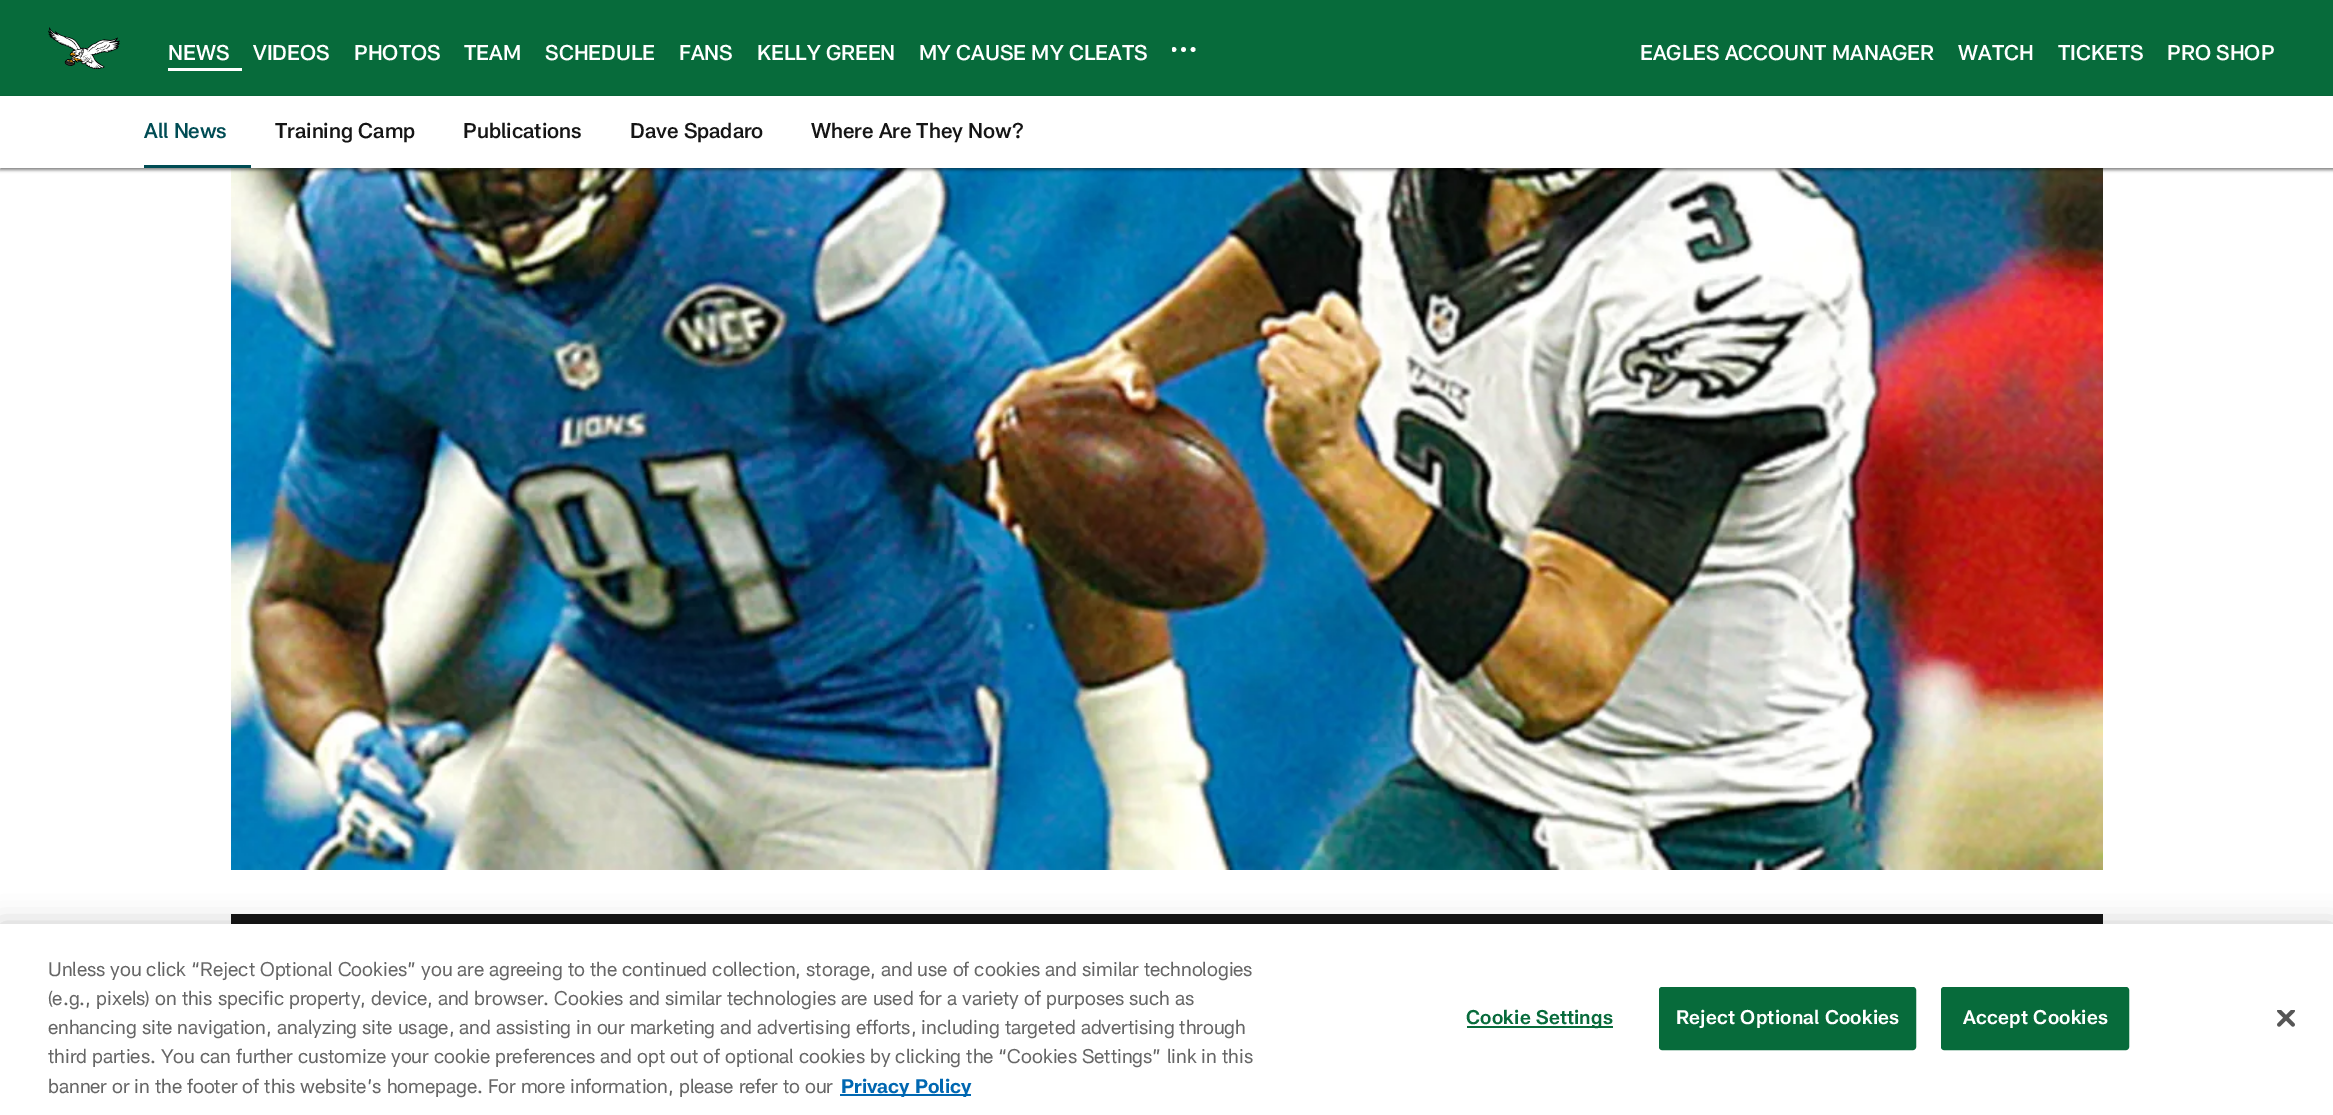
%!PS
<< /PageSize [2333 1115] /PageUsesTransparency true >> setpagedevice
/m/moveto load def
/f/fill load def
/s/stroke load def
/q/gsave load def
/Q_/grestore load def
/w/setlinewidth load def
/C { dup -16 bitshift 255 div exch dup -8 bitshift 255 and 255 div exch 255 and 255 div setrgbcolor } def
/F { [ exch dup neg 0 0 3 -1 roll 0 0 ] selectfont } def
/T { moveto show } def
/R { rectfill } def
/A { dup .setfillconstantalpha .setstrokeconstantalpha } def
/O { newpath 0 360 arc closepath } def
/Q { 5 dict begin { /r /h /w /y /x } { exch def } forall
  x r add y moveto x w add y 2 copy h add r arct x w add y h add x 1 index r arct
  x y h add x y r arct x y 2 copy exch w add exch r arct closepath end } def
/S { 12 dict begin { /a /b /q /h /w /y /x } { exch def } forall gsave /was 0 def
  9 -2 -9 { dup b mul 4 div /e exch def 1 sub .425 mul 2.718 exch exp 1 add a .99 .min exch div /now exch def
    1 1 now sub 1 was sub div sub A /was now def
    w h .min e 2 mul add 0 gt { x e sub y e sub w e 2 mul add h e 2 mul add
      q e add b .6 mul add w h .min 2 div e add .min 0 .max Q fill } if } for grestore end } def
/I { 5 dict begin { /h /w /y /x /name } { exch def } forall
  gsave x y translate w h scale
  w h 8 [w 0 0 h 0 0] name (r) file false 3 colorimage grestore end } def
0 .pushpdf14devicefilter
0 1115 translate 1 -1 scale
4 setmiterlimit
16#FFFFFF C
0 0 2333 1115 R
16#076B3B C
0 0 2333 96 R
(1.rgb) 48 27 72 42 I
16#FFFFFF C
168 68 74 3 R
/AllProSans-Medium 21 F
(NEWS) 168 60 T
(VIDEOS) 253 60 T
(PHOTOS) 354 60 T
(TEAM) 464 60 T
(SCHEDULE) 545 60 T
(FANS) 679 60 T
(KELLY GREEN) 757 60 T
(MY CAUSE MY CLEATS) 919 60 T
1193.1 49.5 2.4 O f
1183.5 49.5 2.4 O f
q
1172 38 24 24 rectclip
1173.9 49.5 2.4 O f
Q_
(EAGLES ACCOUNT MANAGER) 1640 60 T
(WATCH) 1958 60 T
(TICKETS) 2058 60 T
(PRO SHOP) 2167 60 T
(2.rgb) 231 168 1872 702 I
16#000000 C
0 98 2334 72 0 1.5 .47 S
16#FFFFFF C
0 96 2333 72 R
16#004C54 C
144 165 107 3 R
(All News) 144 138 T
16#151515 C
(Training Camp) 275 138 T
(Publications) 463 138 T
(Dave Spadaro) 630 138 T
(Where Are They Now?) 811 138 T
231 914 1872 10 R
16#000000 C
0 924 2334 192 0 13.5 .2 S
16#FFFFFF C
0 924 2333 191 R
/AllProSans-Regular 19.5 F
16#666666 C
(Unless you click “Reject Optional Cookies” you are agreeing to the continued collection, storage, and use of cookies and similar technologies) 48 976 T
(\(e.g., pixels\) on this specific property, device, and browser. Cookies and similar technologies are used for a variety of purposes such as) 48 1005 T
(enhancing site navigation, analyzing site usage, and assisting in our marketing and advertising efforts, including targeted advertising through) 48 1034 T
(third parties. You can further customize your cookie preferences and opt out of optional cookies by clicking the “Cookies Settings” link in this) 48 1063 T
(banner or in the footer of this website’s homepage. For more information, please refer to our) 48 1093 T
16#0067B1 C
840 1094 131 2 R
/AllProSans-Bold 19.5 F
(Privacy Policy) 841 1093 T
16#076B3B C
1467 1026 146 2 R
/AllProSans-SemiBold 19.5 F
1466 1024 m .2 0 (Cookie Settings) ashow
1660 988 255 61 2 Q q f Q_
2 w
s
16#FFFFFF C
1676 1024 m .2 0 (Reject Optional Cookies) ashow
16#076B3B C
1942 988 186 61 2 Q q f Q_
s
16#FFFFFF C
1963 1024 m .2 0 (Accept Cookies) ashow
(3.rgb) 2277 1010 18 17 I
.poppdf14devicefilter showpage
